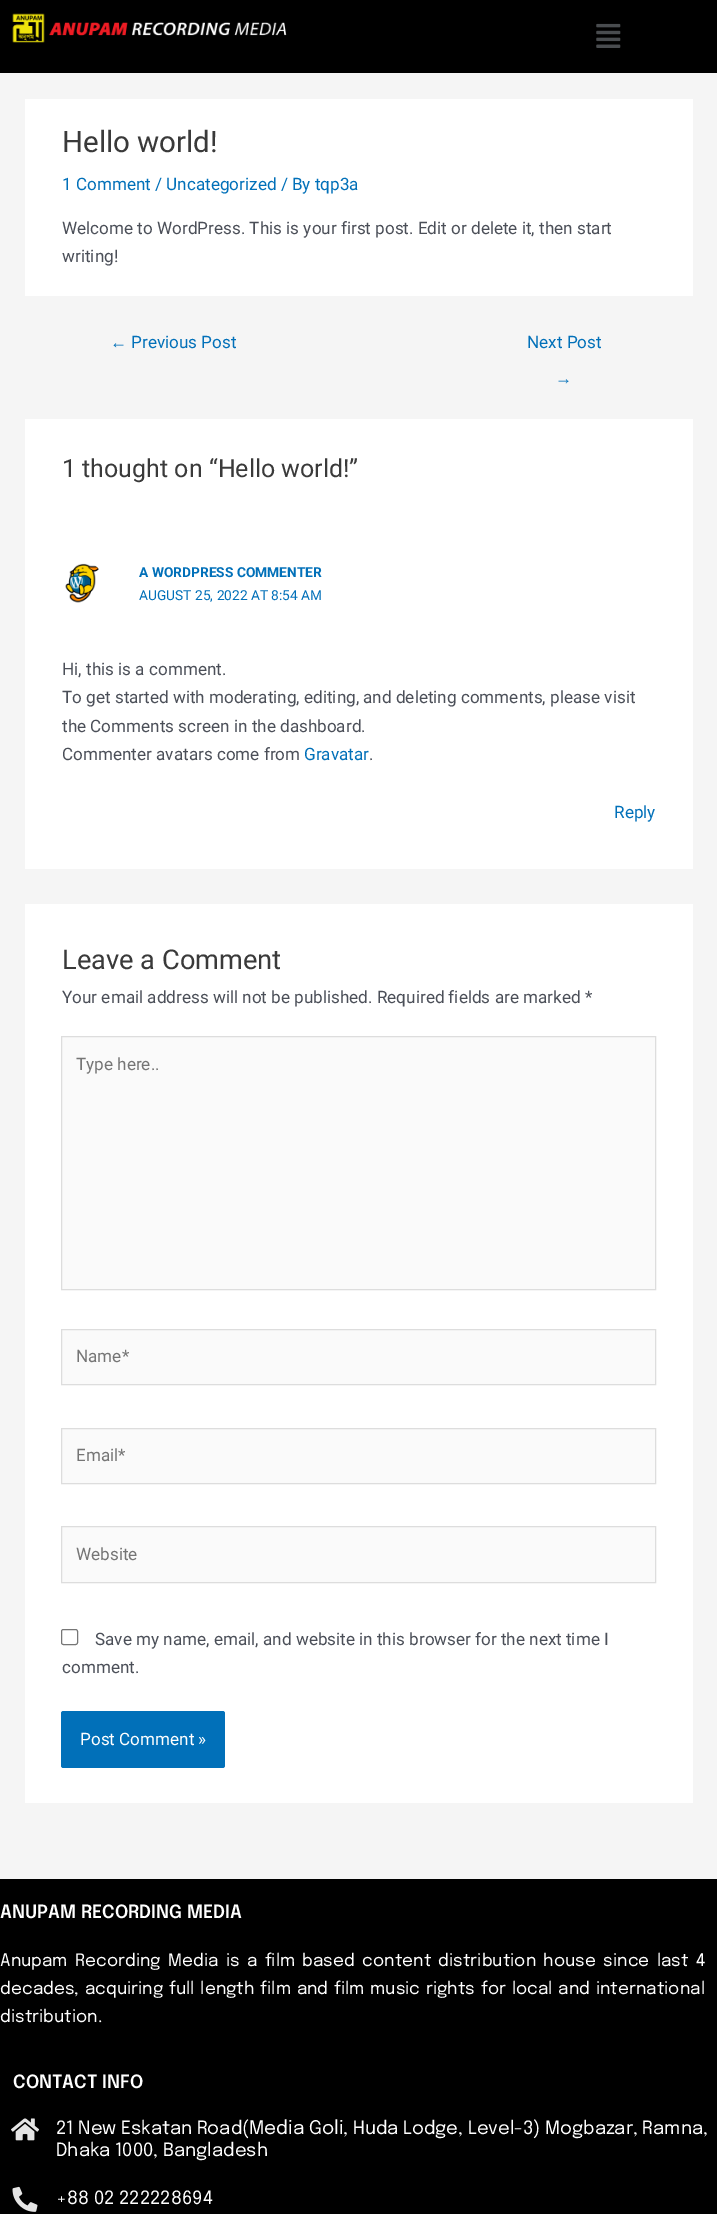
%!PS
<< /PageSize [717 2214] >> setpagedevice
/m/moveto load def
/l/rlineto load def
/z/closepath load def
/f/fill load def
/s/stroke load def
/q/gsave load def
/Q_/grestore load def
/C { dup -16 bitshift 255 div exch dup -8 bitshift 255 and 255 div exch 255 and 255 div setrgbcolor } def
/F { [ exch dup neg 0 0 3 -1 roll 0 0 ] selectfont } def
/T { moveto show } def
/R { rectfill } def
/Q { 5 dict begin { /r /h /w /y /x } { exch def } forall
  x r add y moveto x w add y 2 copy h add r arct x w add y h add x 1 index r arct
  x y h add x y r arct x y 2 copy exch w add exch r arct closepath end } def
/I { 5 dict begin { /h /w /y /x /name } { exch def } forall
  gsave x y translate w h scale
  w h 8 [w 0 0 h 0 0] name (r) file false 3 colorimage grestore end } def
0 2214 translate 1 -1 scale
4 setmiterlimit
16#F5F5F5 C
0 0 717 2214 R
16#000000 C
0 0 717 73 R
(1.rgb) 12 13 275 30 I
(2.rgb) 596 23 25 25 I
16#FFFFFF C
25 99 668 197 R
/Roboto-Regular 29.5 F
16#3A3A3A C
(Hello world!) 62 152 T
/Roboto-Regular 17.1 F
16#0170B9 C
(1 Comment / Uncategorized / By tqp3a) 62 190 T
16#4B4F58 C
(Welcome to WordPress. This is your first post. Edit or delete it, then start) 62 234 T
(writing!) 62 262 T
/LiberationSans-Regular 17.1 F
16#0170B9 C
(←) 110 348 T
/Roboto-Regular 17.1 F
(Previous Post) 131 348 T
(Next Post) 527 348 T
/LiberationSans-Regular 17.1 F
(→) 555 384 T
16#FFFFFF C
25 419 668 450 R
/Roboto-Regular 25 F
16#3A3A3A C
(1 thought on “Hello world!”) 62 477 T
(3.rgb) 65 563 34 40 I
/Roboto-Bold 13.75 F
16#0170B9 C
(A WORDPRESS COMMENTER) 139 577 T
/Roboto-Regular 13.75 F
(AUGUST 25, 2022 AT 8:54 AM) 139 600 T
/Roboto-Regular 17.1 F
16#4B4F58 C
(Hi, this is a comment.) 62 675 T
(To get started with moderating, editing, and deleting comments, please visit) 62 703 T
(the Comments screen in the dashboard.) 62 732 T
(Commenter avatars come from) 62 760 T
16#0170B9 C
(Gravatar) 304 760 T
16#4B4F58 C
(.) 369 760 T
16#0170B9 C
(Reply) 614 818 T
16#FFFFFF C
25 904 668 899 R
/Roboto-Regular 27.25 F
16#3A3A3A C
(Leave a Comment) 62 969 T
/Roboto-Regular 17.1 F
16#4B4F58 C
(Your email address will not be published. Required fields are marked *) 62 1003 T
16#FAFAFA C
61.5 1036.5 m 594 0 l 0 253 l -594 0 l z q f Q_
16#DDDDDD C
s
16#757575 C
(Type here..) 76 1070 T
16#FAFAFA C
61.5 1329.5 m 594 0 l 0 55 l -594 0 l z q f Q_
16#DDDDDD C
s
16#757575 C
(Name*) 76 1362 T
16#FAFAFA C
61.5 1428.5 m 594 0 l 0 55 l -594 0 l z q f Q_
16#DDDDDD C
s
16#757575 C
(Email*) 76 1461 T
16#FAFAFA C
61.5 1526.5 m 594 0 l 0 56 l -594 0 l z q f Q_
16#DDDDDD C
s
16#757575 C
(Website) 76 1560 T
16#767676 C
61.5 1629.5 16 15 2 Q s
16#4B4F58 C
(Save my name, email, and website in this browser for the next time I) 95 1645 T
(comment.) 62 1673 T
16#0170B9 C
61 1711 164 57 2.5 Q f
16#FFFFFF C
(Post Comment ») 80 1745 T
16#000000 C
0 1879 717 335 R
/Epilogue-SemiBold 18.25 F
16#FFFFFF C
(ANUPAM RECORDING MEDIA) 0 1918 T
/Epilogue-Regular 17.1 F
0 1966 m 3 0 32 (Anupam Recording Media is a film based content distribution house since last 4) widthshow
0 1994 m 1.5 0 32 (decades, acquiring full length film and film music rights for local and international) widthshow
(distribution.) 0 2022 T
/Epilogue-SemiBold 18.25 F
(CONTACT INFO) 13 2088 T
(4.rgb) 11 2118 29 23 I
/Epilogue-Regular 18.25 F
(21 New Eskatan Road\() 56 2134 T
/Epilogue-Regular 18.75 F
(Media Goli,) 249 2134 T
/Epilogue-Regular 18.25 F
(Huda Lodge, Level-3\) Mogbazar, Ramna,) 353 2134 T
(Dhaka 1000, Bangladesh) 56 2156 T
(5.rgb) 12 2186 26 26 I
(+88 02 222228694) 56 2204 T
showpage
